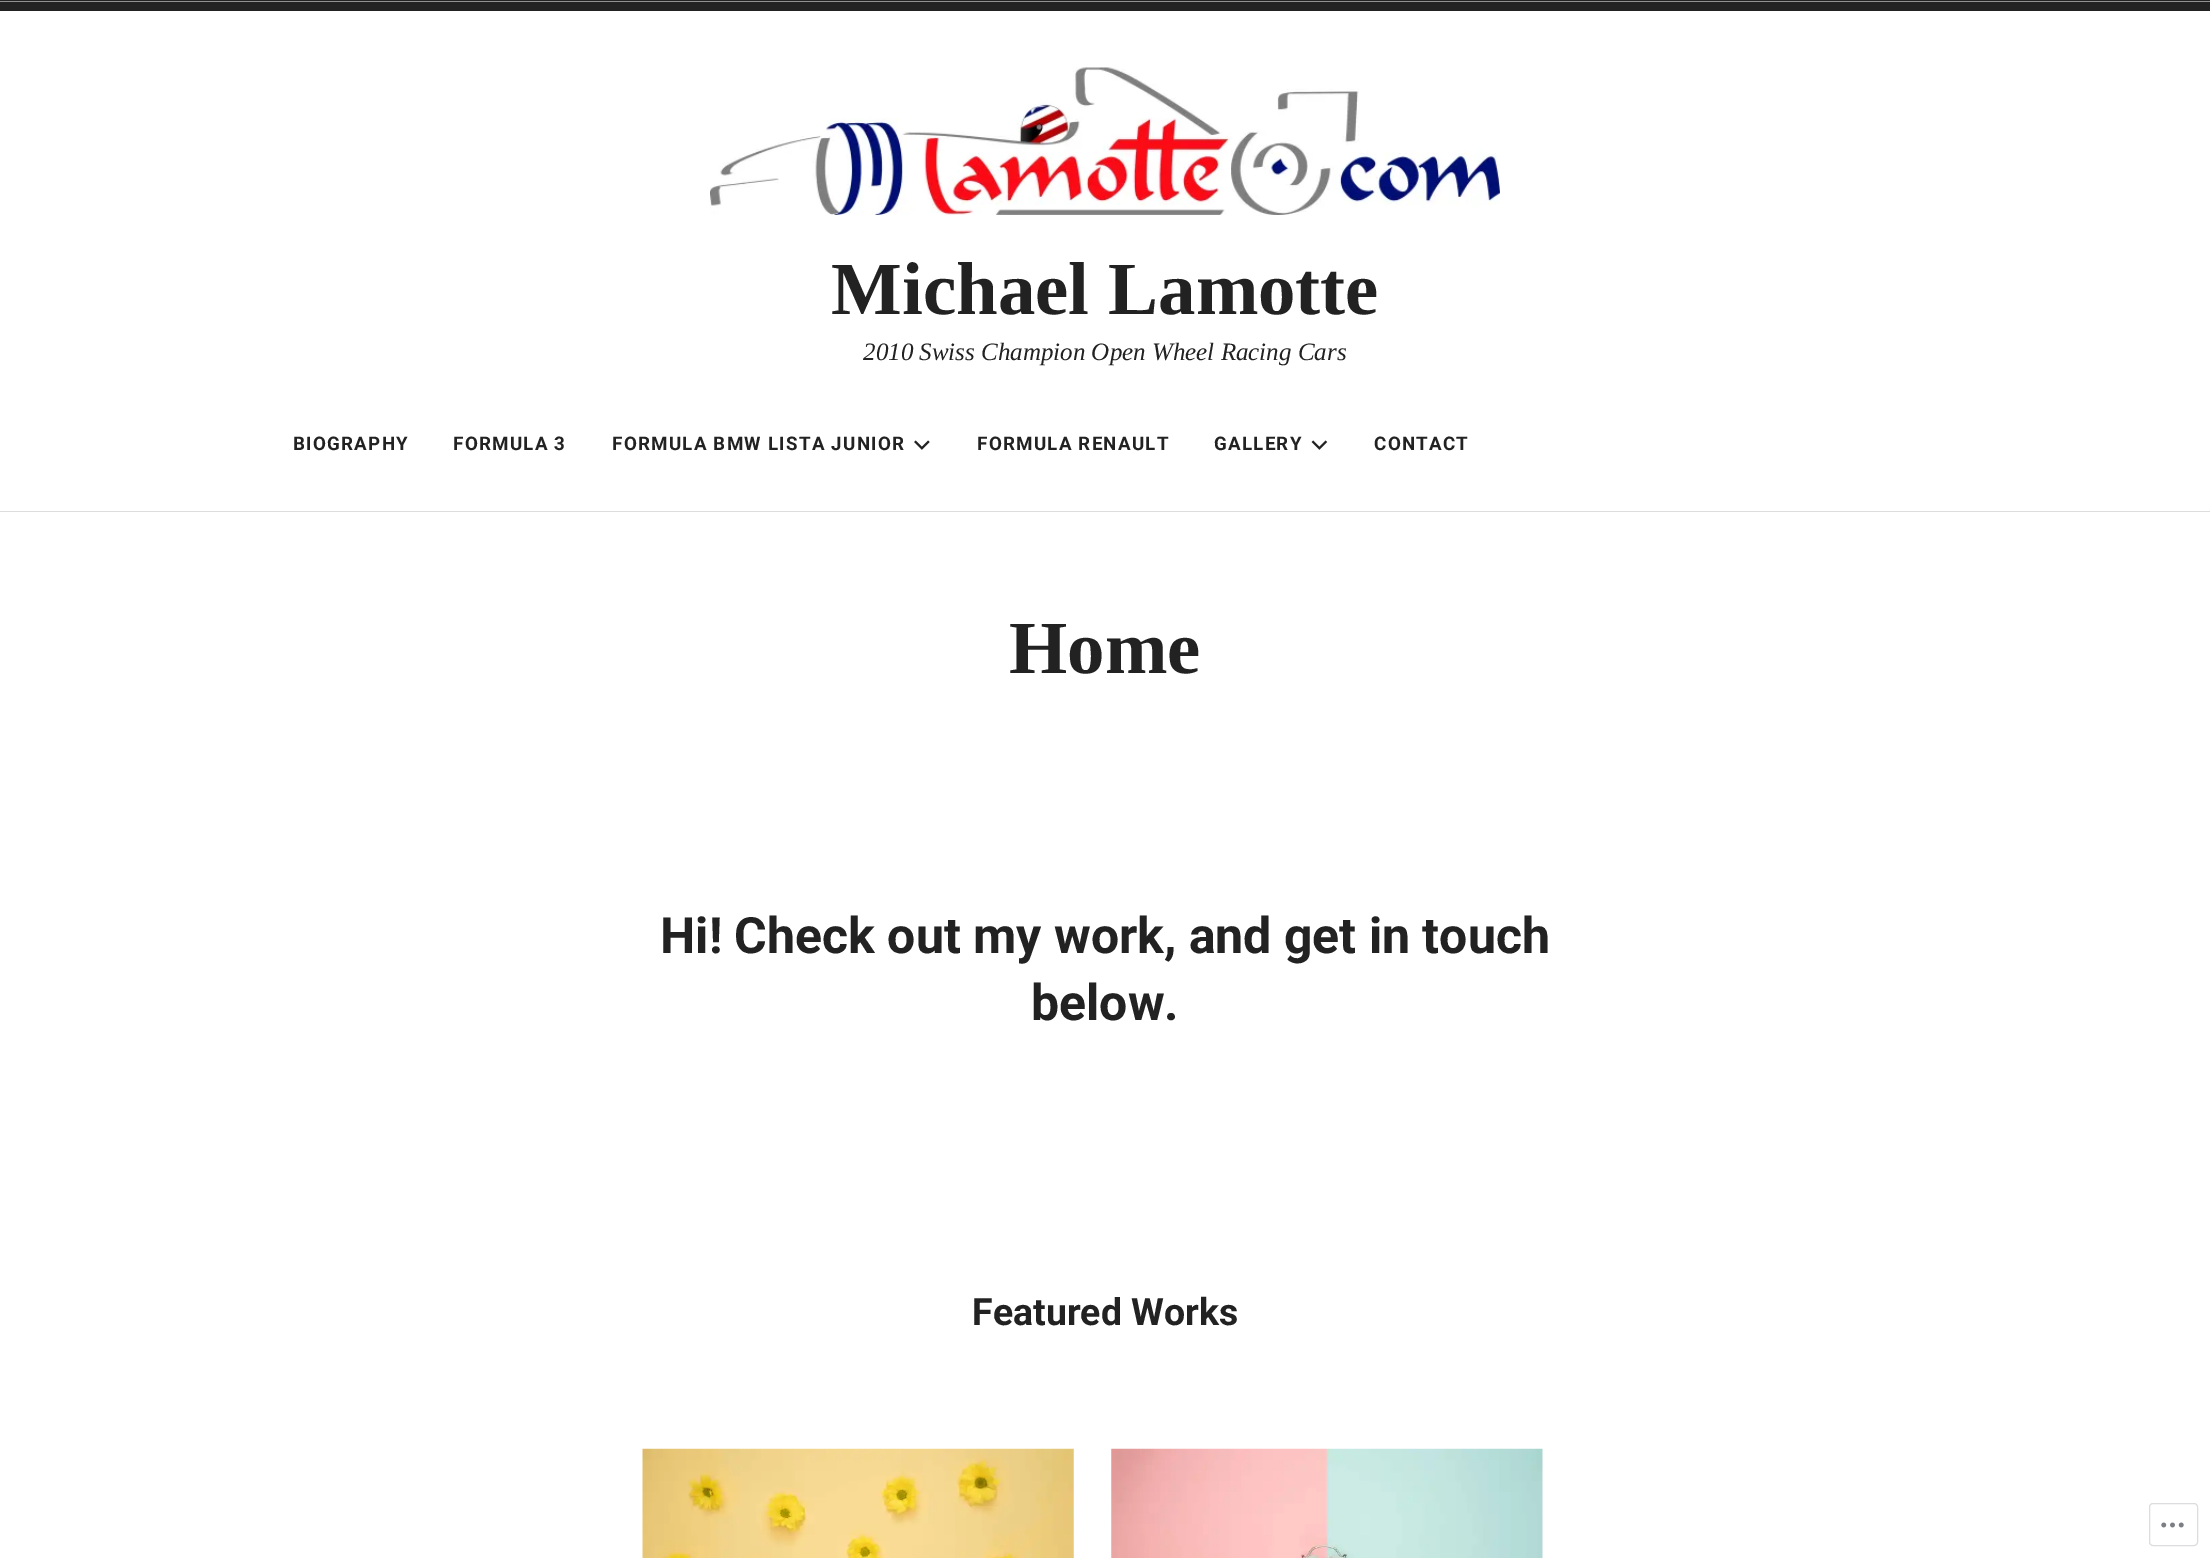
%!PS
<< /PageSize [2210 1558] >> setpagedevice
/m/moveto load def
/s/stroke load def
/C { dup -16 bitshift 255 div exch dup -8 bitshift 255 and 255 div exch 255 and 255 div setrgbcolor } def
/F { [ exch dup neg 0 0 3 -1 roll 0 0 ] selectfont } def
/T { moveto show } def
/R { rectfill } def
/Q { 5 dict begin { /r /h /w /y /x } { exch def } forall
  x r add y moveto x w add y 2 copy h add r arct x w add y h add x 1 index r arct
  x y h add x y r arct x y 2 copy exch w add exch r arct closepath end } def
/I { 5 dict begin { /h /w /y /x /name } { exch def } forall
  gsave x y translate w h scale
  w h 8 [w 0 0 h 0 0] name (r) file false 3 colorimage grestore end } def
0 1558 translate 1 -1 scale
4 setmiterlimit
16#FFFFFF C
0 0 2210 1558 R
16#222222 C
0 0 2210 11 R
16#DDDDDD C
0 511 2210 1 R
16#919191 C
0 1 2210 1 R
(1.rgb) 710 67 790 148 I
/LiberationSerif-Bold 75 F
16#222222 C
(Michael Lamotte) 831 314 T
/LiberationSerif-Italic 25 F
(2010 Swiss Champion Open Wheel Racing Cars) 863 360 T
/Roboto-Bold 18.75 F
293 450 m 1.25 0 (BIOGRAPHY) ashow
453 450 m 1.25 0 (FORMULA 3) ashow
612 450 m 1.25 0 (FORMULA BMW LISTA JUNIOR) ashow
(2.rgb) 914 440 16 10 I
977 450 m 1.25 0 (FORMULA RENAULT) ashow
1214 450 m 1.25 0 (GALLERY) ashow
(3.rgb) 1311 440 17 10 I
1374 450 m 1.25 0 (CONTACT) ashow
/LiberationSerif-Bold 75 F
(Home) 1009 673 T
/Roboto-Bold 50 F
(Hi! Check out my work, and get in touch) 660 953 T
(below.) 1031 1020 T
/Roboto-Bold 37.5 F
(Featured Works) 972 1325 T
(4.rgb) 642 1448 432 110 I
(5.rgb) 1111 1448 432 110 I
16#DDDDDF C
2149.5 1503.5 48 42 3.5 Q s
(6.rgb) 2161 1522 23 6 I
showpage
